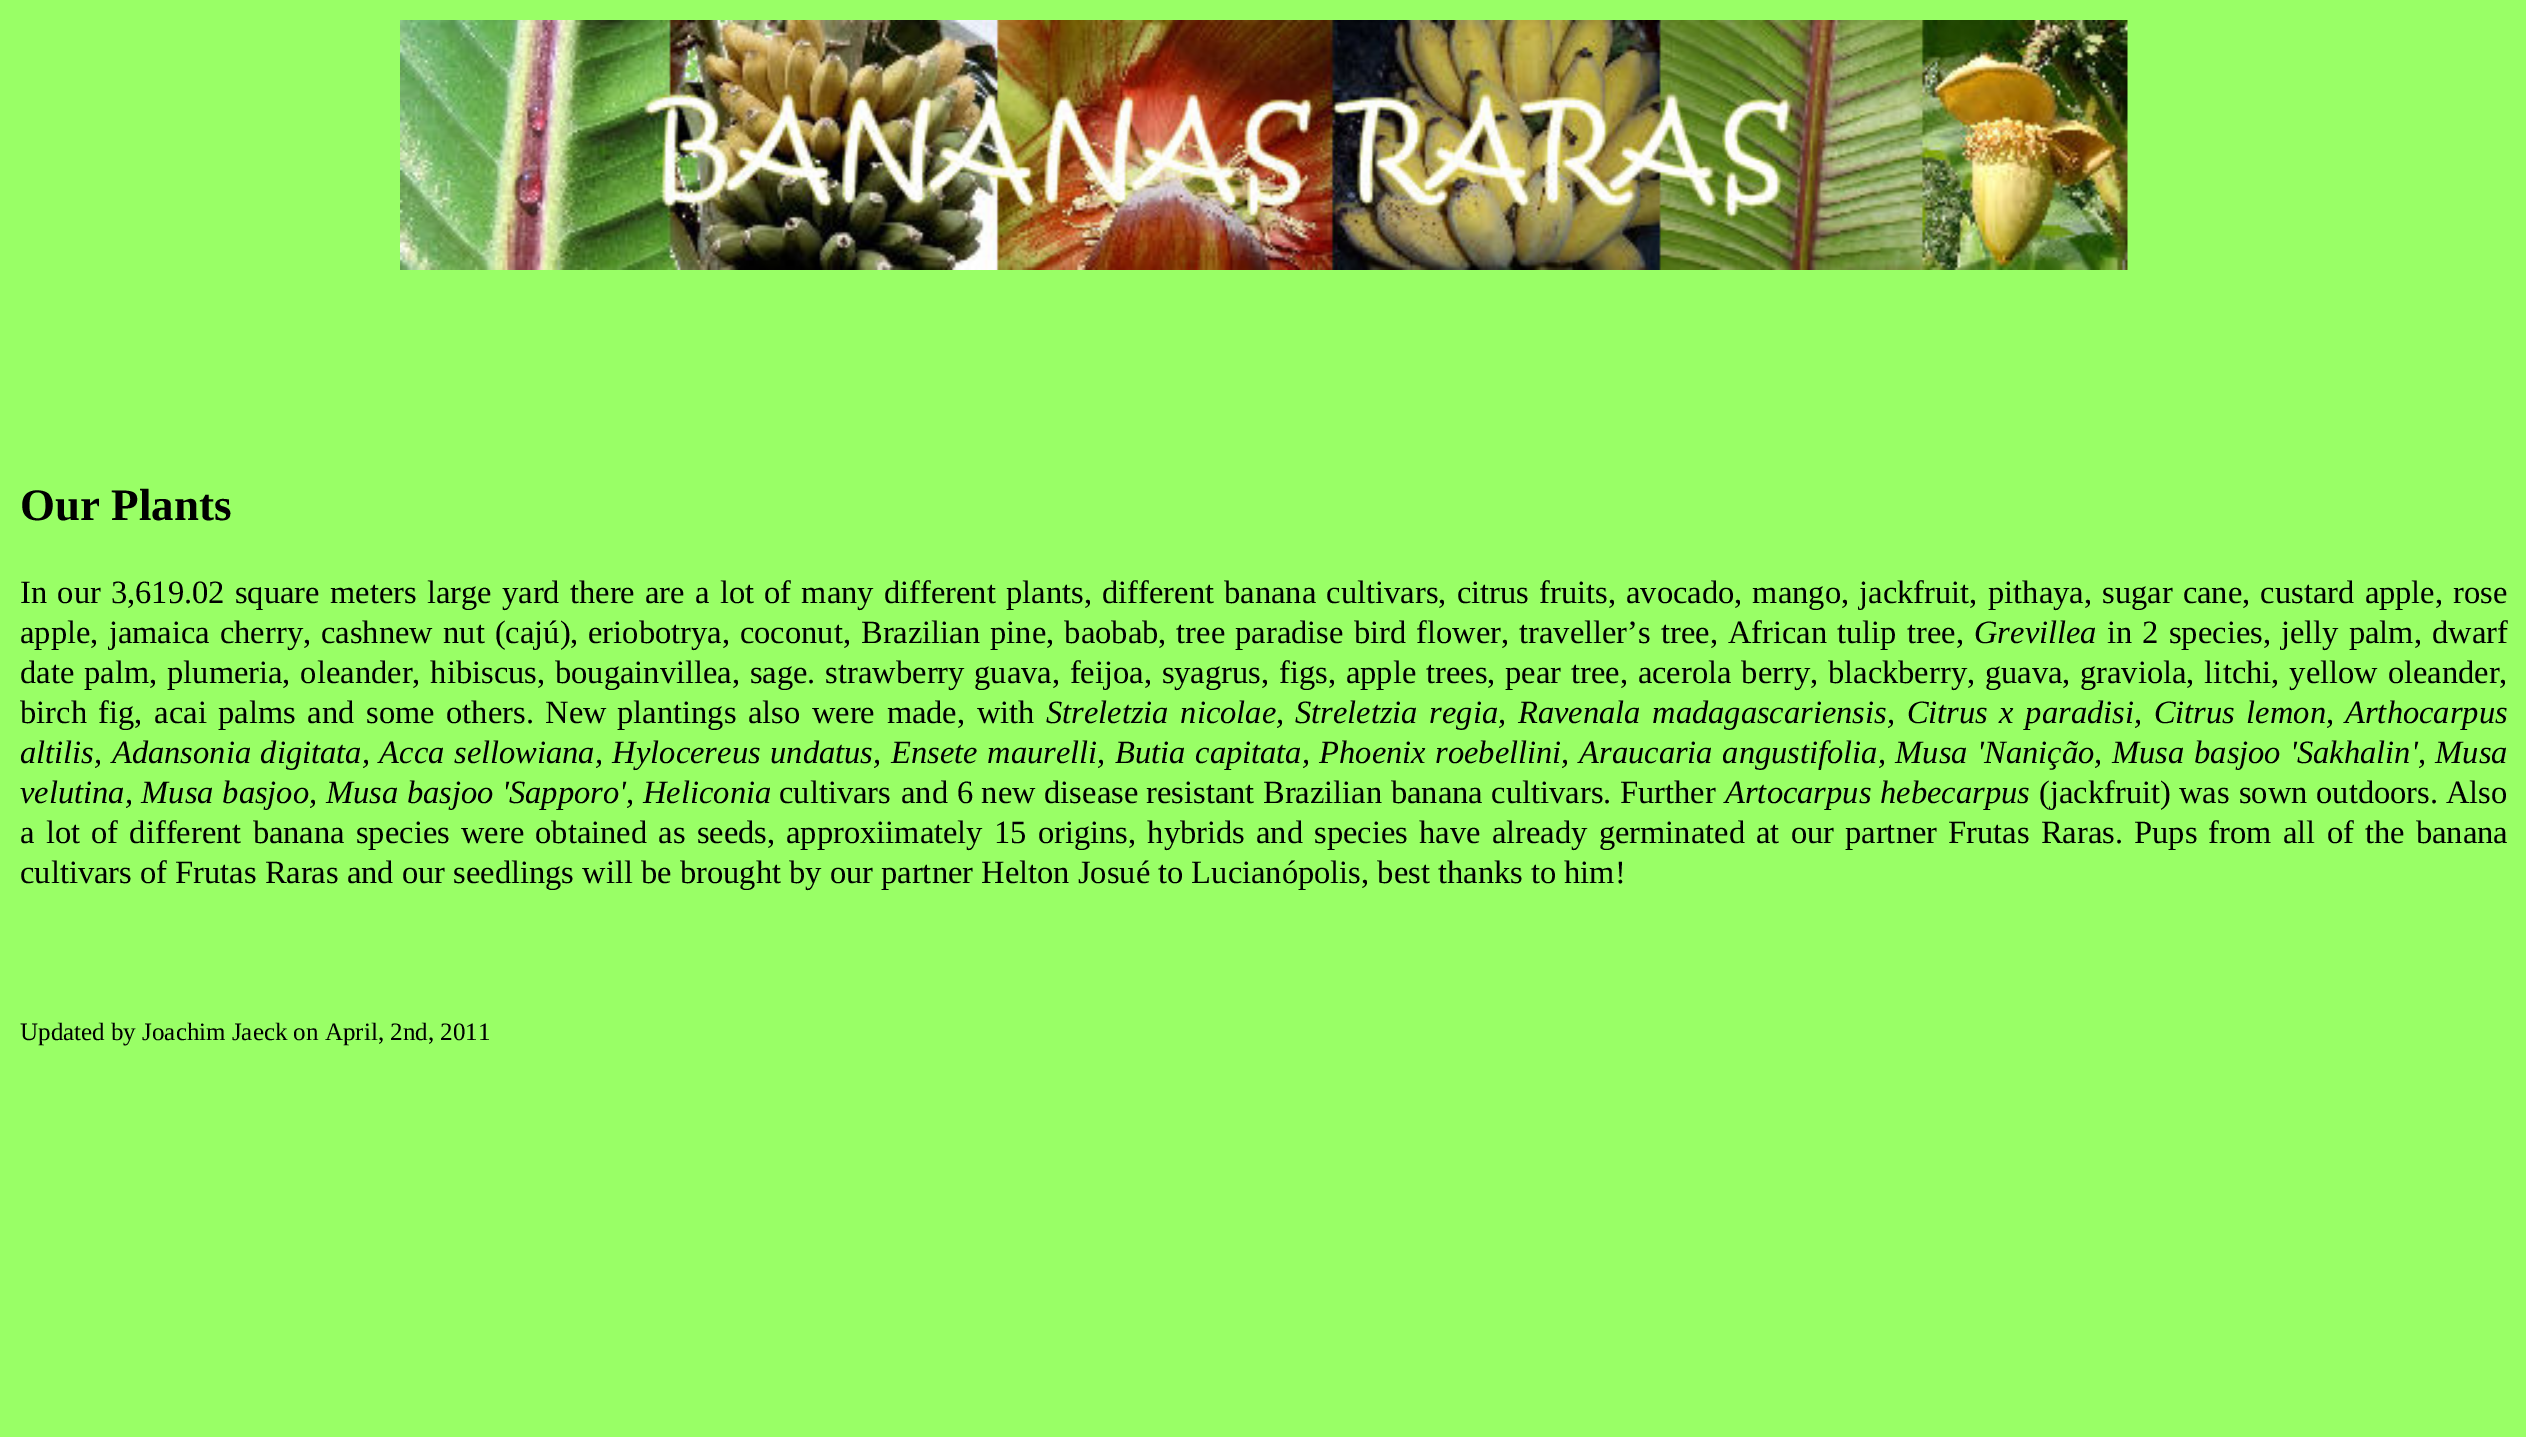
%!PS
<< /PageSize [2526 1437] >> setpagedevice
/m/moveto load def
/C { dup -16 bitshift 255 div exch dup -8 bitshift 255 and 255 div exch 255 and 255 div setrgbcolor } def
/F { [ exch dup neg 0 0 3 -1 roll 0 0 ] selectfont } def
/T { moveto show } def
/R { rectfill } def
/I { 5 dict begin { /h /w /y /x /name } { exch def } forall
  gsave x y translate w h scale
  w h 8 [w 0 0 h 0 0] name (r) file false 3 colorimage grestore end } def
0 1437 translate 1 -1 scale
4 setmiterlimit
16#99FF66 C
0 0 2526 1437 R
(1.rgb) 400 20 1728 250 I
/LiberationSerif-Bold 45 F
16#000000 C
(Our Plants) 20 520 T
/LiberationSerif-Regular 32.5 F
20 603 m 2.1 0 32 (In our 3,619.02 square meters large yard there are a lot of many different) widthshow
1006 603 m 2.1 0 32 (plants, different banana cultivars, citrus fruits, avocado, mango, jackfruit,) widthshow
1988 603 m 2.1 0 32 (pithaya, sugar cane, custard apple, rose) widthshow
20 643 m 2 0 32 (apple, jamaica cherry, cashnew nut \(cajú\),) widthshow
588 643 m 2 0 32 (eriobotrya, coconut, Brazilian pine, baobab, tree paradise bird flower,) widthshow
1519 643 m 2 0 32 (traveller’s tree, African tulip tree,) widthshow
/LiberationSerif-Italic 32.5 F
(Grevillea) 1974 643 T
/LiberationSerif-Regular 32.5 F
2107 643 m 2 0 32 (in 2 species, jelly palm,) widthshow
(dwarf) 2432 643 T
20 683 m 1.75 0 32 (date palm, plumeria, oleander, hibiscus, bougainvillea, sage. strawberry) widthshow
974 683 m 1.75 0 32 (guava, feijoa, syagrus, figs, apple trees, pear tree, acerola berry, blackberry, guava,) widthshow
2080 683 m 1.75 0 32 (graviola, litchi, yellow oleander,) widthshow
20 723 m 3.5 0 32 (birch fig, acai palms and some others. New) widthshow
617 723 m 3.5 0 32 (plantings also were made, with) widthshow
/LiberationSerif-Italic 32.5 F
1046 723 m 3.5 0 32 (Streletzia nicolae,) widthshow
1295 723 m 3.5 0 32 (Streletzia regia, Ravenala madagascariensis, Citrus x paradisi, Citrus lemon,) widthshow
(Arthocarpus) 2345 723 T
20 763 m 1.5 0 32 (altilis, Adansonia digitata, Acca sellowiana, Hylocereus undatus,) widthshow
891 763 m 1.5 0 32 (Ensete maurelli, Butia capitata, Phoenix) widthshow
1435 763 m 1.5 0 32 (roebellini, Araucaria angustifolia, Musa 'Nanição, Musa) widthshow
(basjoo) 2194 763 T
2290 763 m 1.5 0 32 ('Sakhalin', Musa) widthshow
20 803 m .5 0 32 (velutina, Musa basjoo, Musa basjoo 'Sapporo',) widthshow
(Heliconia) 643 803 T
/LiberationSerif-Regular 32.5 F
(cultivars) 779 803 T
901 803 m .5 0 32 (and 6 new disease) widthshow
1146 803 m .5 0 32 (resistant Brazilian banana cultivars. Further) widthshow
/LiberationSerif-Italic 32.5 F
1725 803 m .5 0 32 (Artocarpus hebecarpus) widthshow
/LiberationSerif-Regular 32.5 F
(\(jackfruit\)) 2039 803 T
2179 803 m 1 0 32 (was sown) widthshow
(outdoors. Also) 2316 803 T
20 843 m 3.1 0 32 (a lot of different banana species were obtained as seeds,) widthshow
786 843 m 3.1 0 32 (approxiimately 15 origins, hybrids and species have already germinated at our) widthshow
1845 843 m 3.1 0 32 (partner Frutas Raras. Pups from all of the banana) widthshow
(cultivars of Frutas Raras and our seedlings will be brought by our partner Helton Josué to Lucianópolis, best thanks to him!) 20 883 T
/LiberationSerif-Regular 25 F
(Updated by Joachim Jaeck on April, 2nd, 2011) 20 1040 T
showpage
